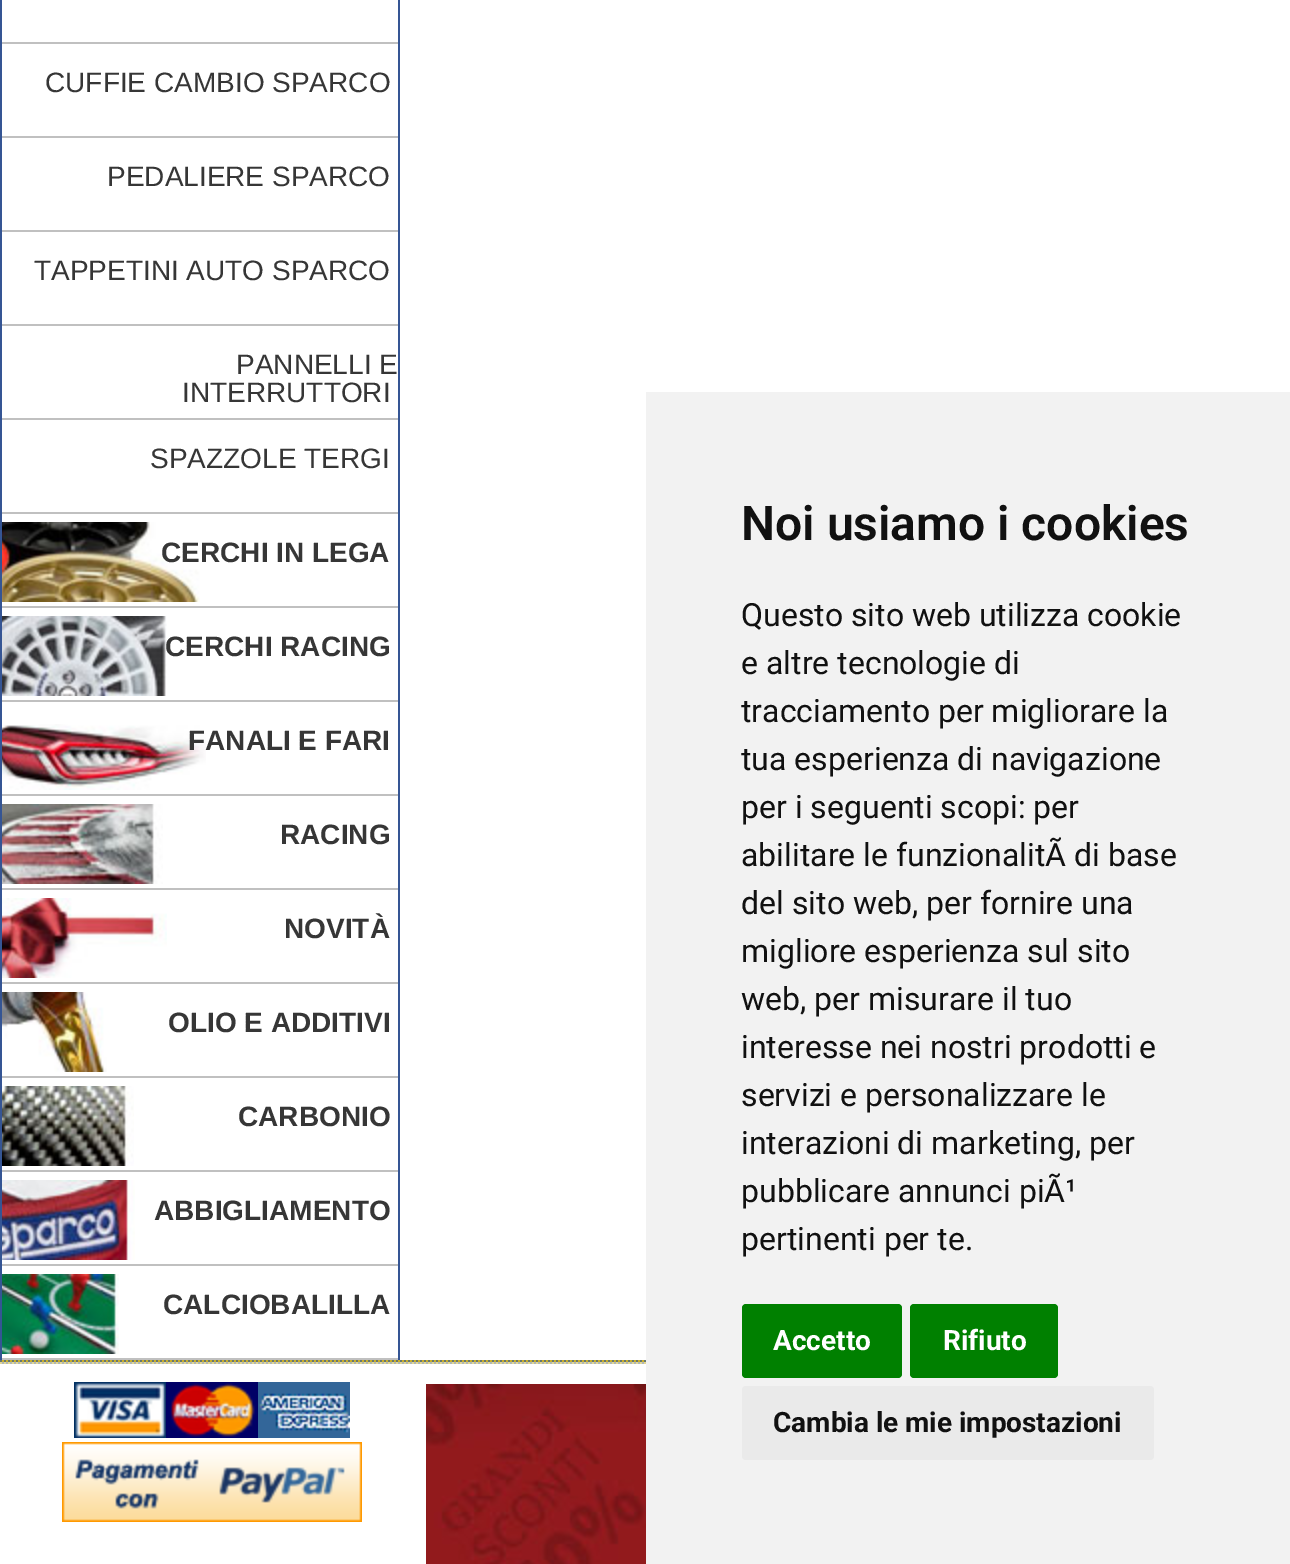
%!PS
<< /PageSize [1290 1564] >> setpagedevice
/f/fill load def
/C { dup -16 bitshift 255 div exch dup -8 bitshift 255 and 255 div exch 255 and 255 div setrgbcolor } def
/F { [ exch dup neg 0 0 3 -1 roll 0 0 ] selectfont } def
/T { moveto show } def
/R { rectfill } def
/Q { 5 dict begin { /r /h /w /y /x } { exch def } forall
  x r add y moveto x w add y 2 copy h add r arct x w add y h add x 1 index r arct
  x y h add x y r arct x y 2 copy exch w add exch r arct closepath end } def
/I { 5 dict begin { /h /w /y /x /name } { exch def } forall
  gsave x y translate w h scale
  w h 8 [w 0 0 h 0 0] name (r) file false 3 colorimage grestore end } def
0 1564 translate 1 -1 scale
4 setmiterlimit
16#FFFFFF C
0 0 1290 1564 R
16#355594 C
398 0 2 1360 R
0 0 2 1360 R
16#C0C0C0 C
2 42 396 2 R
2 136 396 2 R
/LiberationSans-Regular 28 F
16#363636 C
(CUFFIE CAMBIO SPARCO) 45 92 T
16#C0C0C0 C
2 230 396 2 R
16#363636 C
(PEDALIERE SPARCO) 107 186 T
16#C0C0C0 C
2 324 396 2 R
16#363636 C
(TAPPETINI AUTO SPARCO) 34 280 T
16#C0C0C0 C
2 418 396 2 R
16#363636 C
(PANNELLI E) 236 374 T
(INTERRUTTORI) 182 402 T
16#C0C0C0 C
2 512 396 2 R
16#363636 C
(SPAZZOLE TERGI) 150 468 T
(1.rgb) 2 522 198 80 I
16#C0C0C0 C
2 606 396 2 R
/LiberationSans-Bold 28 F
16#363636 C
(CERCHI IN LEGA) 161 562 T
(2.rgb) 2 616 165 80 I
16#C0C0C0 C
2 700 396 2 R
16#363636 C
(CERCHI RACING) 165 656 T
(3.rgb) 2 724 204 66 I
16#C0C0C0 C
2 794 396 2 R
16#363636 C
(FANALI E FARI) 188 750 T
(4.rgb) 2 804 161 80 I
16#C0C0C0 C
2 888 396 2 R
16#363636 C
(RACING) 280 844 T
(5.rgb) 2 898 165 80 I
16#C0C0C0 C
2 982 396 2 R
16#363636 C
(NOVITÀ) 284 938 T
(6.rgb) 2 992 105 80 I
16#C0C0C0 C
2 1076 396 2 R
16#363636 C
(OLIO E ADDITIVI) 168 1032 T
(7.rgb) 2 1086 132 80 I
16#C0C0C0 C
2 1170 396 2 R
16#363636 C
(CARBONIO) 238 1126 T
(8.rgb) 2 1180 133 80 I
16#C0C0C0 C
2 1264 396 2 R
16#363636 C
(ABBIGLIAMENTO) 154 1220 T
(9.rgb) 2 1274 117 80 I
16#C0C0C0 C
2 1358 396 2 R
16#363636 C
(CALCIOBALILLA) 163 1314 T
(10.rgb) 0 1360 646 2 I
(11.rgb) 0 1362 646 2 I
(12.rgb) 74 1382 92 56 I
(13.rgb) 166 1382 92 56 I
(14.rgb) 258 1382 92 56 I
(15.rgb) 62 1442 300 80 I
(16.rgb) 426 1384 220 180 I
16#F2F2F2 C
646 392 644 1172 R
/Roboto-SemiBold 48 F
16#111111 C
(Noi usiamo i cookies) 741 540 T
/Roboto-Regular 32 F
(Questo sito web utilizza cookie) 741 626 T
(e altre tecnologie di) 741 674 T
(tracciamento per migliorare la) 741 722 T
(tua esperienza di navigazione) 741 770 T
(per i seguenti scopi: per) 741 818 T
(abilitare le funzionalitÃ di base) 741 866 T
(del sito web, per fornire una) 741 914 T
(migliore esperienza sul sito) 741 962 T
(web, per misurare il tuo) 741 1010 T
(interesse nei nostri prodotti e) 741 1058 T
(servizi e personalizzare le) 741 1106 T
(interazioni di marketing, per) 741 1154 T
(pubblicare annunci piÃ¹) 741 1202 T
(pertinenti per te.) 741 1250 T
16#008000 C
742 1304 160 74 4 Q f
/Roboto-Bold 28 F
16#FFFFFF C
(Accetto) 773 1350 T
16#008000 C
910 1304 148 74 4 Q f
16#FFFFFF C
(Rifiuto) 943 1350 T
16#EAEAEA C
742 1386 412 74 4 Q f
16#111111 C
(Cambia le mie impostazioni) 773 1432 T
showpage
